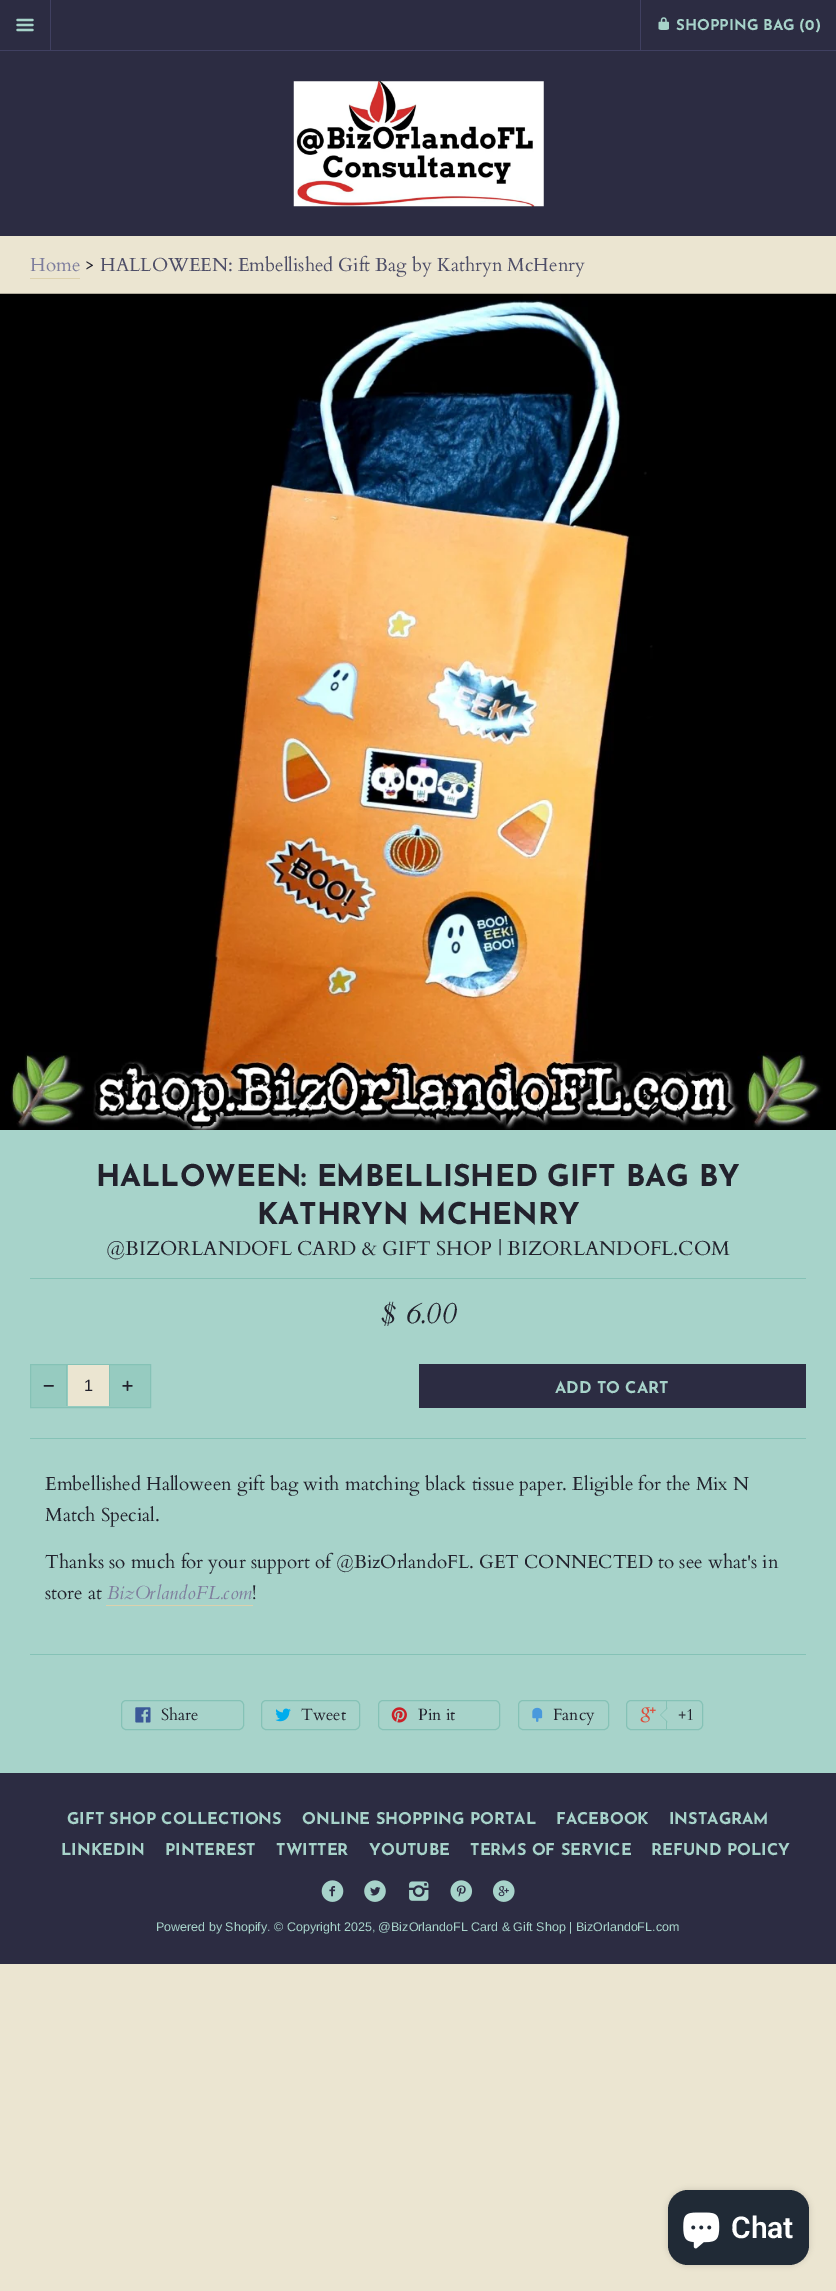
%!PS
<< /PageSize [836 2291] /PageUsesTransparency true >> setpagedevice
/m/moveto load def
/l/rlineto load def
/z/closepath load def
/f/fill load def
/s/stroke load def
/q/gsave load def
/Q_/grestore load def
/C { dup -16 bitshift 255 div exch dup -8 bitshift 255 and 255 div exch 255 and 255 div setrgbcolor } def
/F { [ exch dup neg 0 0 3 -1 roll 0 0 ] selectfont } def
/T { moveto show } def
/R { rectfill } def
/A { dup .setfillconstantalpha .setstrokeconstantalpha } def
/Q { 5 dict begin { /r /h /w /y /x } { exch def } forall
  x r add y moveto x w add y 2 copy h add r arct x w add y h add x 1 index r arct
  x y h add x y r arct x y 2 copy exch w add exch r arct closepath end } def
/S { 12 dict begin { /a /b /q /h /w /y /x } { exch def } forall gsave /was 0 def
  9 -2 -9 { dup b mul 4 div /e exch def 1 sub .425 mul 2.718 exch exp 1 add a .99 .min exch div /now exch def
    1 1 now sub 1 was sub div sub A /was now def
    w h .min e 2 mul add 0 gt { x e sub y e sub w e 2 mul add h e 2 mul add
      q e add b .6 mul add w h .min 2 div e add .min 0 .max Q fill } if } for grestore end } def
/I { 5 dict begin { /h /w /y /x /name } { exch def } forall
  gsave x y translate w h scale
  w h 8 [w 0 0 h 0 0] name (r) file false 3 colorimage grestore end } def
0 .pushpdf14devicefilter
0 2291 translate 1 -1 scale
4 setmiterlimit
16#EBE5D1 C
0 0 836 2291 R
16#2C2C42 C
0 0 836 50 R
16#404061 C
0 50 836 1 R
50 0 1 50 R
(1.rgb) 16 18 18 14 I
640 0 1 50 R
(2.rgb) 658 17 11 13 I
/JosefinSans-Bold 15 F
16#A7D3CA C
(SHOPPING BAG \(0\)) 676 30 T
16#2C2C42 C
0 51 836 185 R
(3.rgb) 293 81 251 126 I
/Cardo-Regular 18.75 F
16#7E7E9D C
(Home) 30 271 T
16#DCD1AD C
30 278 50 1 R
16#22222D C
(>) 85 271 T
16#4E4E67 C
(HALLOWEEN: Embellished Gift Bag by Kathryn McHenry) 100 271 T
(4.rgb) 0 293 836 837 I
16#A7D3CA C
0 1130 836 643 R
/JosefinSans-Bold 30 F
16#22222D C
(HALLOWEEN: EMBELLISHED GIFT BAG BY) 96 1186 T
(KATHRYN MCHENRY) 257 1224 T
16#85C2B6 C
30 1278 776 1 R
/Cardo-Regular 20 F
16#22222D C
(@BIZORLANDOFL CARD & GIFT SHOP | BIZORLANDOFL.COM) 106 1255 T
/Cardo-Italic 30 F
($ 6.00) 381 1323 T
16#96CBC0 C
30.5 1364.5 m 120 0 l 0 43 l -120 0 l z q f Q_
16#85C2B6 C
s
(5.rgb) 43 1385 11 2 I
16#EBE5D1 C
68 1365 41 41 R
16#85C2B6 C
109 1365 1 41 R
66 1365 1 41 R
/LiberationSans-Regular 16.25 F
16#22222D C
(1) 84 1391 T
(6.rgb) 122 1380 11 11 I
16#2C2C42 C
419 1364 387 44 R
/JosefinSans-Bold 16.25 F
16#A7D3CA C
(ADD TO CART) 555 1393 T
16#85C2B6 C
30 1438 776 1 R
30 1654 776 1 R
/Cardo-Regular 18.75 F
16#22222D C
(Embellished Halloween gift bag with matching black tissue paper. Eligible for the Mix N) 45 1490 T
(Match Special.) 45 1521 T
(Thanks so much for your support of @BizOrlandoFL. GET CONNECTED to see what's in) 45 1568 T
(store at) 45 1599 T
16#DCD1AD C
106 1605 147 1 R
/Cardo-Italic 18.75 F
16#7E7E9D C
(BizOrlandoFL.com) 107 1599 T
/Cardo-Regular 18.75 F
16#22222D C
(!) 252 1599 T
16#85C2B6 C
121.5 1700.5 122 29 4.5 Q s
(7.rgb) 135 1707 16 16 I
/Cardo-Regular 16.25 F
16#22222D C
(Share) 161 1720 T
16#85C2B6 C
261.5 1700.5 98 29 4.5 Q s
(8.rgb) 275 1708 16 14 I
16#22222D C
(Tweet) 301 1720 T
16#85C2B6 C
378.5 1700.5 121 29 4.5 Q s
(9.rgb) 391 1707 16 16 I
16#22222D C
(Pin it) 418 1720 T
16#85C2B6 C
518.5 1700.5 90 29 4.5 Q s
(10.rgb) 532 1707 11 15 I
16#22222D C
(Fancy) 553 1720 T
16#85C2B6 C
626.5 1700.5 76 29 4.5 Q s
(11.rgb) 640 1707 16 16 I
666 1701 1 28 R
667.5 1707.5 m 0 15 l -7.5 -7.5 l z f
16#A7D3CA C
669 1707.5 m 0 15 l -8 -7.5 l z f
16#22222D C
(+1) 678 1720 T
16#2C2C42 C
0 1773 836 191 R
/JosefinSans-Bold 16.25 F
16#A7D3CA C
(GIFT SHOP COLLECTIONS) 67 1824 T
(ONLINE SHOPPING PORTAL) 302 1824 T
(FACEBOOK) 556 1824 T
(INSTAGRAM) 669 1824 T
(LINKEDIN) 61 1855 T
(PINTEREST) 165 1855 T
(TWITTER) 276 1855 T
(YOUTUBE) 369 1855 T
(TERMS OF SERVICE) 470 1855 T
(REFUND POLICY) 651 1855 T
(12.rgb) 321 1880 23 22 I
(13.rgb) 364 1880 22 22 I
(14.rgb) 409 1881 20 20 I
(15.rgb) 450 1880 23 22 I
(16.rgb) 492 1880 23 22 I
/LiberationSans-Regular 12.5 F
(Powered by Shopify. © Copyright 2025, @BizOrlandoFL Card & Gift Shop | BizOrlandoFL.com) 156 1931 T
16#000000 C
668 2190 141 75 20 3 .15 S
16#202A36 C
668 2190 141 75 20 Q f
(17.rgb) 683 2212 37 37 I
/Roboto-SemiBold 30 F
16#FFFFFF C
(Chat) 731 2238 T
.poppdf14devicefilter showpage
